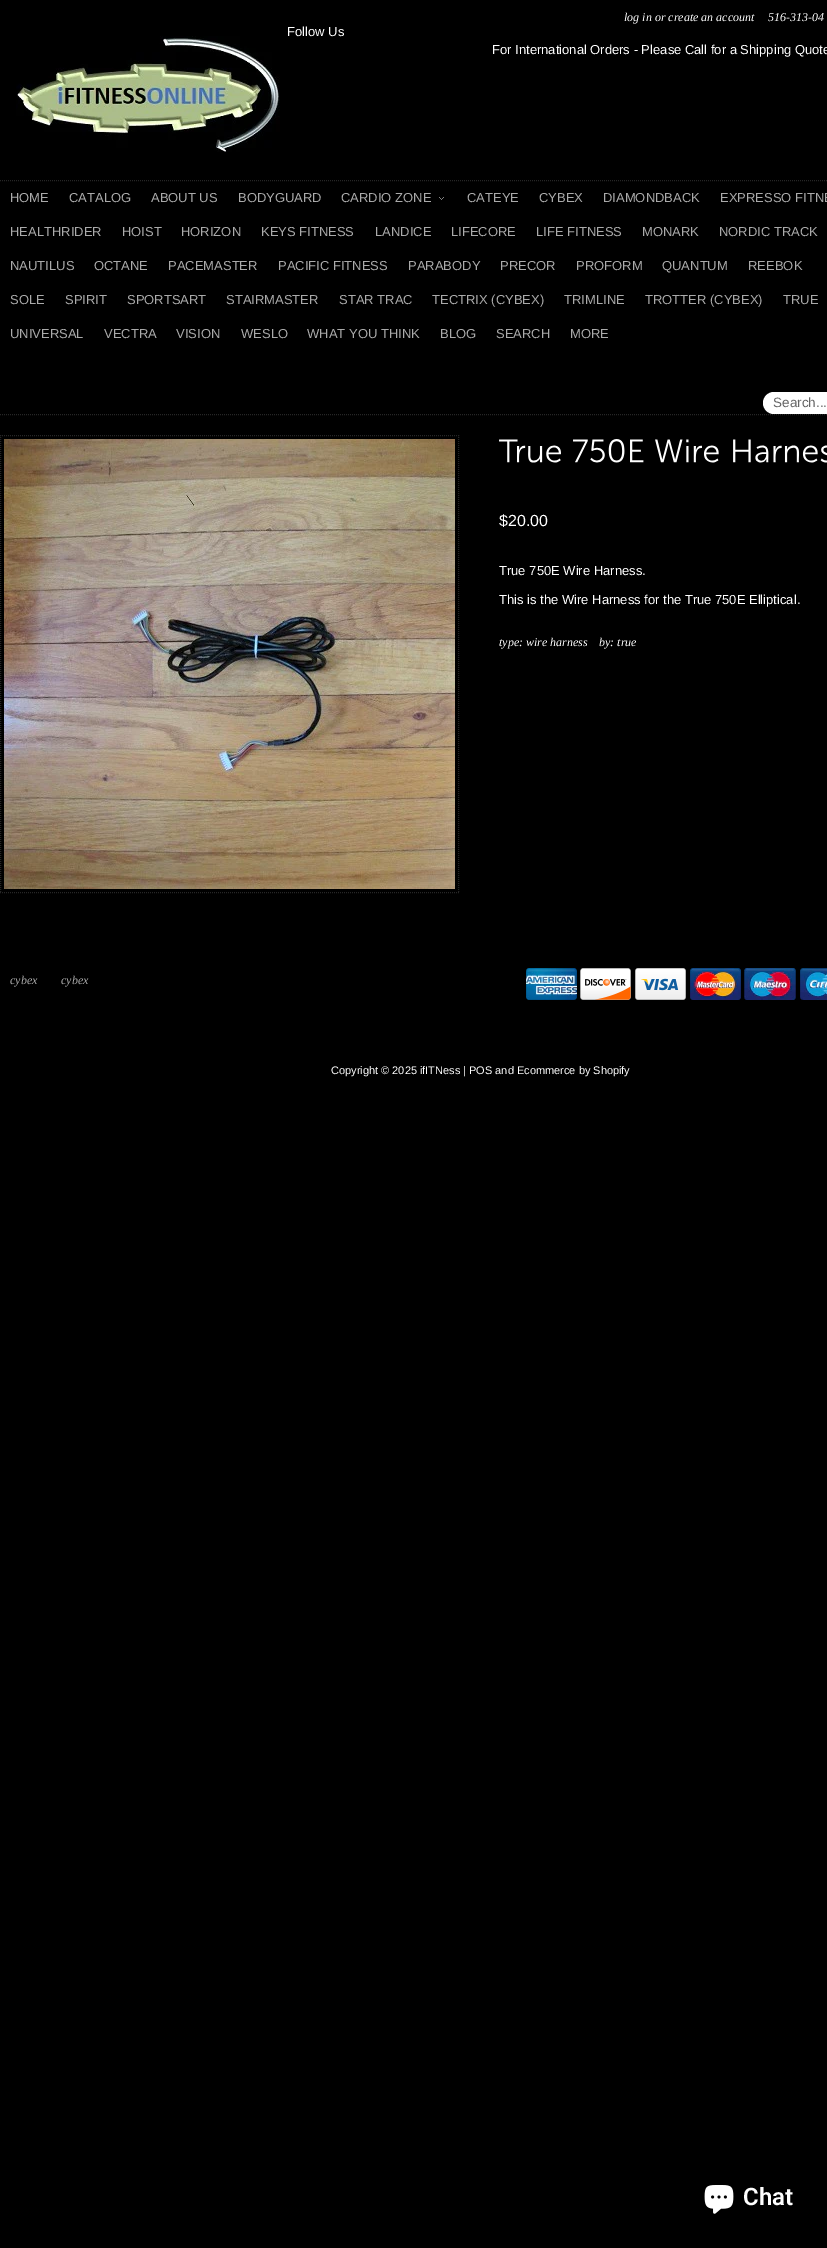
%!PS
<< /PageSize [827 2248] >> setpagedevice
/m/moveto load def
/l/rlineto load def
/f/fill load def
/s/stroke load def
/C { dup -16 bitshift 255 div exch dup -8 bitshift 255 and 255 div exch 255 and 255 div setrgbcolor } def
/F { [ exch dup neg 0 0 3 -1 roll 0 0 ] selectfont } def
/T { moveto show } def
/R { rectfill } def
/Q { 5 dict begin { /r /h /w /y /x } { exch def } forall
  x r add y moveto x w add y 2 copy h add r arct x w add y h add x 1 index r arct
  x y h add x y r arct x y 2 copy exch w add exch r arct closepath end } def
/I { 5 dict begin { /h /w /y /x /name } { exch def } forall
  gsave x y translate w h scale
  w h 8 [w 0 0 h 0 0] name (r) file false 3 colorimage grestore end } def
0 2248 translate 1 -1 scale
4 setmiterlimit
16#000000 C
0 0 827 2248 R
/LiberationSerif-Italic 12 F
16#FFFFFF C
(log in or create an account) 624 21 T
(516-313-04) 768 21 T
/LiberationSans-Regular 13 F
(Follow Us) 287 36 T
(1.rgb) 16 36 264 116 I
(For International Orders - Please Call for a Shipping Quote) 492 54 T
16#262626 C
[1 1] 0 setdash
0 180.5 m 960 0 l s
0 414.5 m 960 0 l s
16#AAAAAA C
(HOME) 10 202 T
(CATALOG) 69 202 T
(ABOUT US) 151 202 T
(BODYGUARD) 238 202 T
(2.rgb) 439 197 5 3 I
(CARDIO ZONE) 341 202 T
(CATEYE) 467 202 T
(CYBEX) 539 202 T
(DIAMONDBACK) 603 202 T
(EXPRESSO FITNE) 720 202 T
(HEALTHRIDER) 10 236 T
(HOIST) 122 236 T
(HORIZON) 181 236 T
(KEYS FITNESS) 261 236 T
(LANDICE) 375 236 T
(LIFECORE) 451 236 T
(LIFE FITNESS) 536 236 T
(MONARK) 642 236 T
(NORDIC TRACK) 719 236 T
(NAUTILUS) 10 270 T
(OCTANE) 94 270 T
(PACEMASTER) 168 270 T
(PACIFIC FITNESS) 278 270 T
(PARABODY) 408 270 T
(PRECOR) 500 270 T
(PROFORM) 576 270 T
(QUANTUM) 662 270 T
(REEBOK) 748 270 T
(SOLE) 10 304 T
(SPIRIT) 65 304 T
(SPORTSART) 127 304 T
(STAIRMASTER) 226 304 T
(STAR TRAC) 339 304 T
(TECTRIX \(CYBEX\)) 432 304 T
(TRIMLINE) 564 304 T
(TROTTER \(CYBEX\)) 645 304 T
(TRUE) 783 304 T
(UNIVERSAL) 10 338 T
(VECTRA) 104 338 T
(VISION) 176 338 T
(WESLO) 241 338 T
(WHAT YOU THINK) 307 338 T
(BLOG) 440 338 T
(SEARCH) 496 338 T
(MORE) 570 338 T
16#FFFFFF C
763 392 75 22 11 Q f
/LiberationSans-Regular 13.5 F
16#666666 C
(Search...) 773 407 T
16#262626 C
0 435.5 m 459 0 l s
458.5 435 m 0 458 l s
0 892.5 m 459 0 l s
.5 435 m 0 458 l s
(3.rgb) 4 439 451 450 I
(4.rgb) 499 439 62 24 I
(5.rgb) 573 439 71 24 I
(6.rgb) 655 439 64 24 I
(7.rgb) 733 439 94 24 I
/LiberationSans-Regular 16 F
16#FFFFFF C
($20.00) 499 526 T
/LiberationSans-Regular 13 F
(True 750E Wire Harness.) 499 575 T
(This is the Wire Harness for the True 750E Elliptical.) 499 604 T
/LiberationSerif-Italic 12 F
(type: wire harness) 499 646 T
(by: true) 599 646 T
16#AAAAAA C
(cybex) 10 984 T
(cybex) 61 984 T
(8.rgb) 526 968 51 32 I
(9.rgb) 580 968 51 32 I
(10.rgb) 635 968 51 32 I
(11.rgb) 690 968 51 32 I
(12.rgb) 744 968 52 32 I
(13.rgb) 800 968 27 32 I
/LiberationSans-Regular 11 F
16#FFFFFF C
(Copyright © 2025 ifITNess | POS and Ecommerce by Shopify) 331 1074 T
(14.rgb) 704 2185 30 29 I
/Roboto-SemiBold 24 F
(Chat) 743 2205 T
showpage
